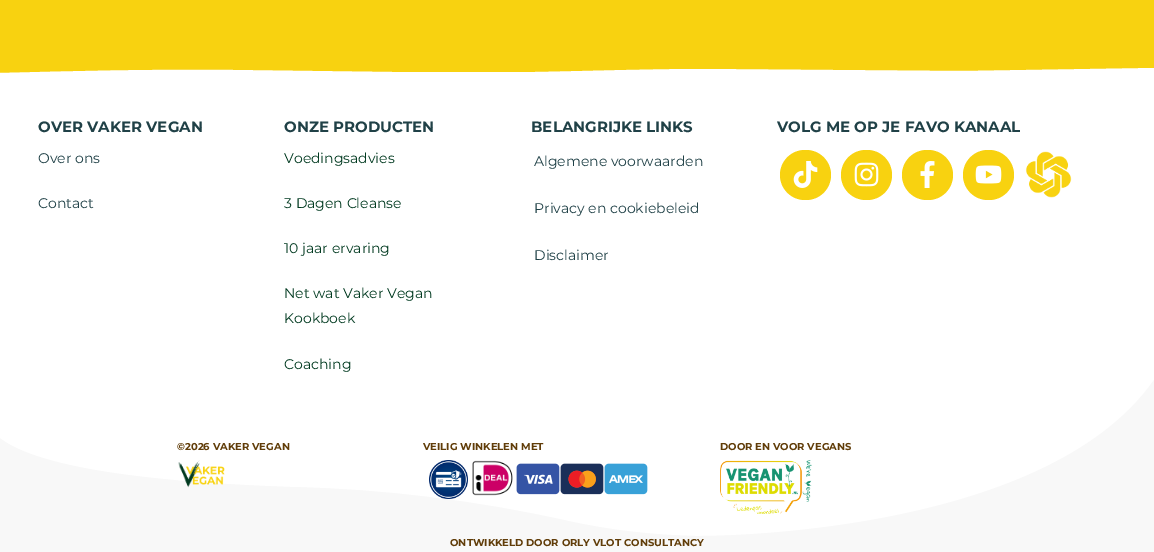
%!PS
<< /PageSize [1154 552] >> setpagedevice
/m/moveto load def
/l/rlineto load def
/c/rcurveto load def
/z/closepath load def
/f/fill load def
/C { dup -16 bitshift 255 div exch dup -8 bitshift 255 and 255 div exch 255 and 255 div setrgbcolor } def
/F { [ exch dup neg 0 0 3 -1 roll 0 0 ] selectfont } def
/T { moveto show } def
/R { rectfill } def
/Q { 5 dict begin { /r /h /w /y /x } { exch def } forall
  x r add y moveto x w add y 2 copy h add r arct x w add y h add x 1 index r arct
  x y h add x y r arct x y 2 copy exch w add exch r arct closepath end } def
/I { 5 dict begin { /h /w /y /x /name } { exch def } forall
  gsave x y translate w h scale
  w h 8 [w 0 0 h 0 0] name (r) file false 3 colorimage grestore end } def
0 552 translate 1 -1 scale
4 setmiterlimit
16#FFFFFF C
0 0 1154 552 R
16#F8D210 C
0 0 1154 73 R
16#FFFFFF C
1154 68 m 0 6 l -1154 0 l 0 -1 l 78 -2 155 -4 233 -3 c 159 2 l 143 0 l 57 -1 113 -3 169 -3 c 258 2 l 64 -1 128 -2 192 -3 c z f
/Montserrat-Bold 15 F
16#204147 C
(OVER VAKER VEGAN) 38 132 T
/Montserrat-Regular 14 F
(Over ons) 38 163 T
(Contact) 38 208 T
/Montserrat-Bold 15 F
(ONZE PRODUCTEN) 284 132 T
/Montserrat-Regular 14 F
16#013A20 C
(Voedingsadvies) 284 163 T
(3 Dagen Cleanse) 284 208 T
(10 jaar ervaring) 284 253 T
(Net wat Vaker Vegan) 284 298 T
(Kookboek) 284 323 T
(Coaching) 284 369 T
/Montserrat-Bold 15 F
16#204147 C
(BELANGRIJKE LINKS) 531 132 T
/Montserrat-Regular 14 F
(Algemene voorwaarden) 534 166 T
(Privacy en cookiebeleid) 534 213 T
(Disclaimer) 534 260 T
/Montserrat-Bold 15 F
(VOLG ME OP JE FAVO KANAAL) 777 132 T
16#F8D210 C
780 150 51 50 25 Q f
(1.rgb) 793 161 25 27 I
841 150 51 50 25 Q f
(2.rgb) 854 162 25 25 I
902 150 51 50 25 Q f
(3.rgb) 920 161 15 27 I
963 150 51 50 25 Q f
(4.rgb) 975 165 27 19 I
(5.rgb) 1025 151 47 47 I
16#F8F8F8 C
290 487 m 95 2 189 14 278 34 c 41 9 83 14 127 15 c 6 0 l 0 0 343 2 453 -156 c 0 172 l -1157 0 l 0 -116 l 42 36 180 47 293 51 c z f
/Montserrat-Bold 10 F
16#613D09 C
(©2026 VAKER VEGAN) 177 450 T
(6.rgb) 178 460 47 28 I
(VEILIG WINKELEN MET) 423 450 T
(7.rgb) 429 460 39 39 I
(8.rgb) 472 460 41 36 I
(9.rgb) 516 463 44 32 I
(10.rgb) 560 463 44 32 I
(11.rgb) 604 463 44 32 I
(DOOR EN VOOR VEGANS) 720 450 T
(12.rgb) 720 460 92 54 I
(ONTWIKKELD DOOR ORLY VLOT CONSULTANCY) 450 546 T
showpage
